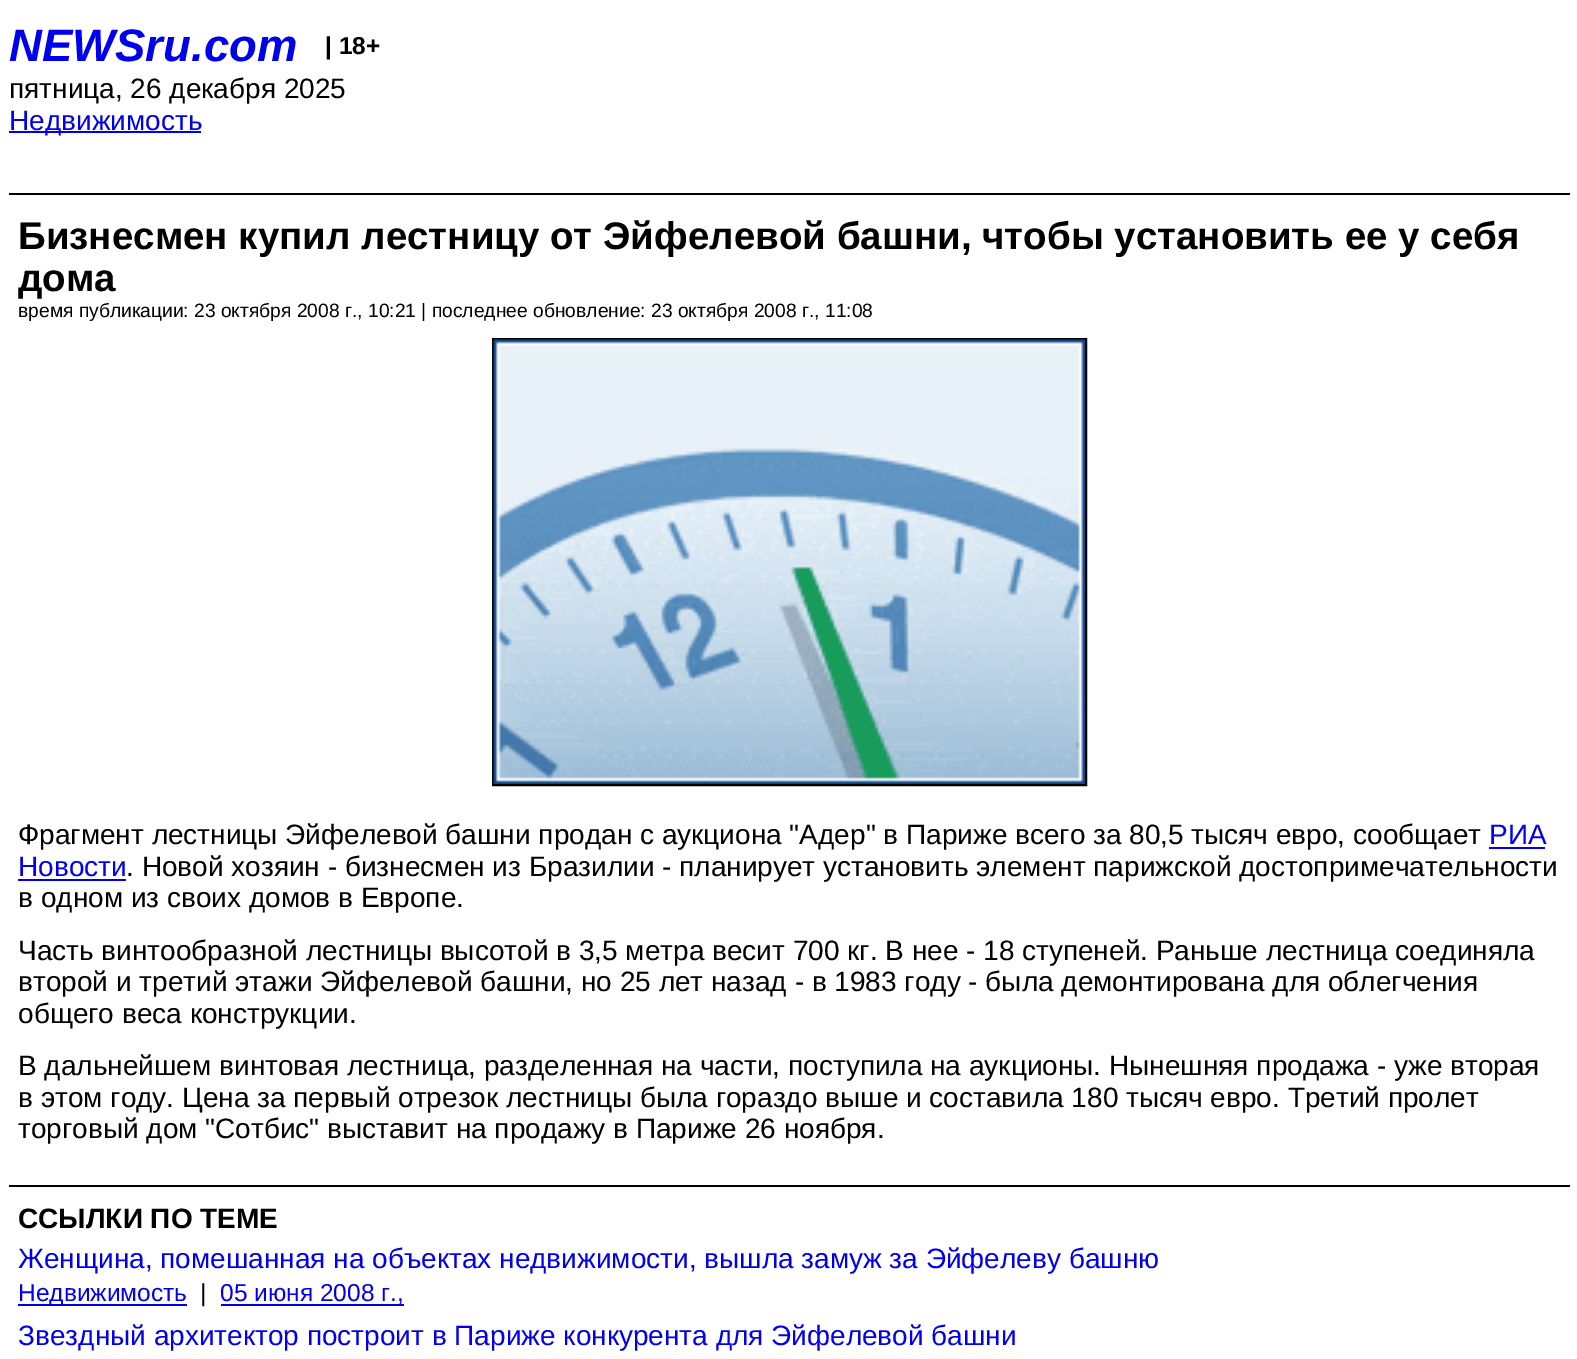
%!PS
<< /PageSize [1577 1359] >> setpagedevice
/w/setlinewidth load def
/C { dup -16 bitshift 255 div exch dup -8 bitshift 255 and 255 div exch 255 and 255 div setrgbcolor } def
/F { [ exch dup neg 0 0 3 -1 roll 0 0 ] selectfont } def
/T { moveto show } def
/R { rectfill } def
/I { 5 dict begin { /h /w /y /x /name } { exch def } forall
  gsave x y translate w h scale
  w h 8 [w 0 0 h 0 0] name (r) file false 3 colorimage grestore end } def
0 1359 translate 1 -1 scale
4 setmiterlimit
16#FFFFFF C
0 0 1577 1359 R
16#000000 C
9 193 1561 2 R
/LiberationSans-BoldItalic 45.5 F
16#0000EE C
(NEWSru.com) 9 61 T
/LiberationSans-Bold 24.5 F
16#000000 C
(| 18+) 325 54 T
/LiberationSans-Regular 28 F
(пятница, 26 декабря 2025) 9 98 T
16#0000EE C
9 131 192 2 R
(Недвижимость) 9 130 T
16#000000 C
9 1185 1561 2 R
/LiberationSans-Bold 38.5 F
(Бизнесмен купил лестницу от Эйфелевой башни, чтобы установить ее у себя) 18 249 T
(дома) 18 291 T
/LiberationSans-Regular 19.25 F
(время публикации: 23 октября 2008 г., 10:21 | последнее обновление: 23 октября 2008 г., 11:08) 18 317 T
2 w
493 339 593 446 rectstroke
(1.rgb) 493 339 592 445 I
/LiberationSans-Regular 28 F
(Фрагмент лестницы Эйфелевой башни продан с аукциона "Адер" в Париже всего за 80,5 тысяч евро, сообщает) 18 844 T
16#0000EE C
(РИА) 1489 844 T
1489 847 56 2 R
(Новости) 18 876 T
18 879 108 2 R
16#000000 C
(. Новой хозяин - бизнесмен из Бразилии - планирует установить элемент парижской достопримечательности) 126 876 T
(в одном из своих домов в Европе.) 18 907 T
(Часть винтообразной лестницы высотой в 3,5 метра весит 700 кг. В нее - 18 ступеней. Раньше лестница соединяла) 18 960 T
(второй и третий этажи Эйфелевой башни, но 25 лет назад - в 1983 году - была демонтирована для облегчения) 18 991 T
(общего веса конструкции.) 18 1023 T
(В дальнейшем винтовая лестница, разделенная на части, поступила на аукционы. Нынешняя продажа - уже вторая) 18 1075 T
(в этом году. Цена за первый отрезок лестницы была гораздо выше и составила 180 тысяч евро. Третий пролет) 18 1107 T
(торговый дом "Сотбис" выставит на продажу в Париже 26 ноября.) 18 1138 T
/LiberationSans-Bold 28 F
(ССЫЛКИ ПО ТЕМЕ) 18 1228 T
/LiberationSans-Regular 28 F
16#0000EE C
(Женщина, помешанная на объектах недвижимости, вышла замуж за Эйфелеву башню) 18 1268 T
18 1304 169 2 R
/LiberationSans-Regular 24.5 F
(Недвижимость) 18 1301 T
16#000000 C
(|) 200 1301 T
16#0000EE C
221 1304 183 2 R
(05 июня 2008 г.,) 220 1301 T
/LiberationSans-Regular 28 F
(Звездный архитектор построит в Париже конкурента для Эйфелевой башни) 18 1345 T
showpage
